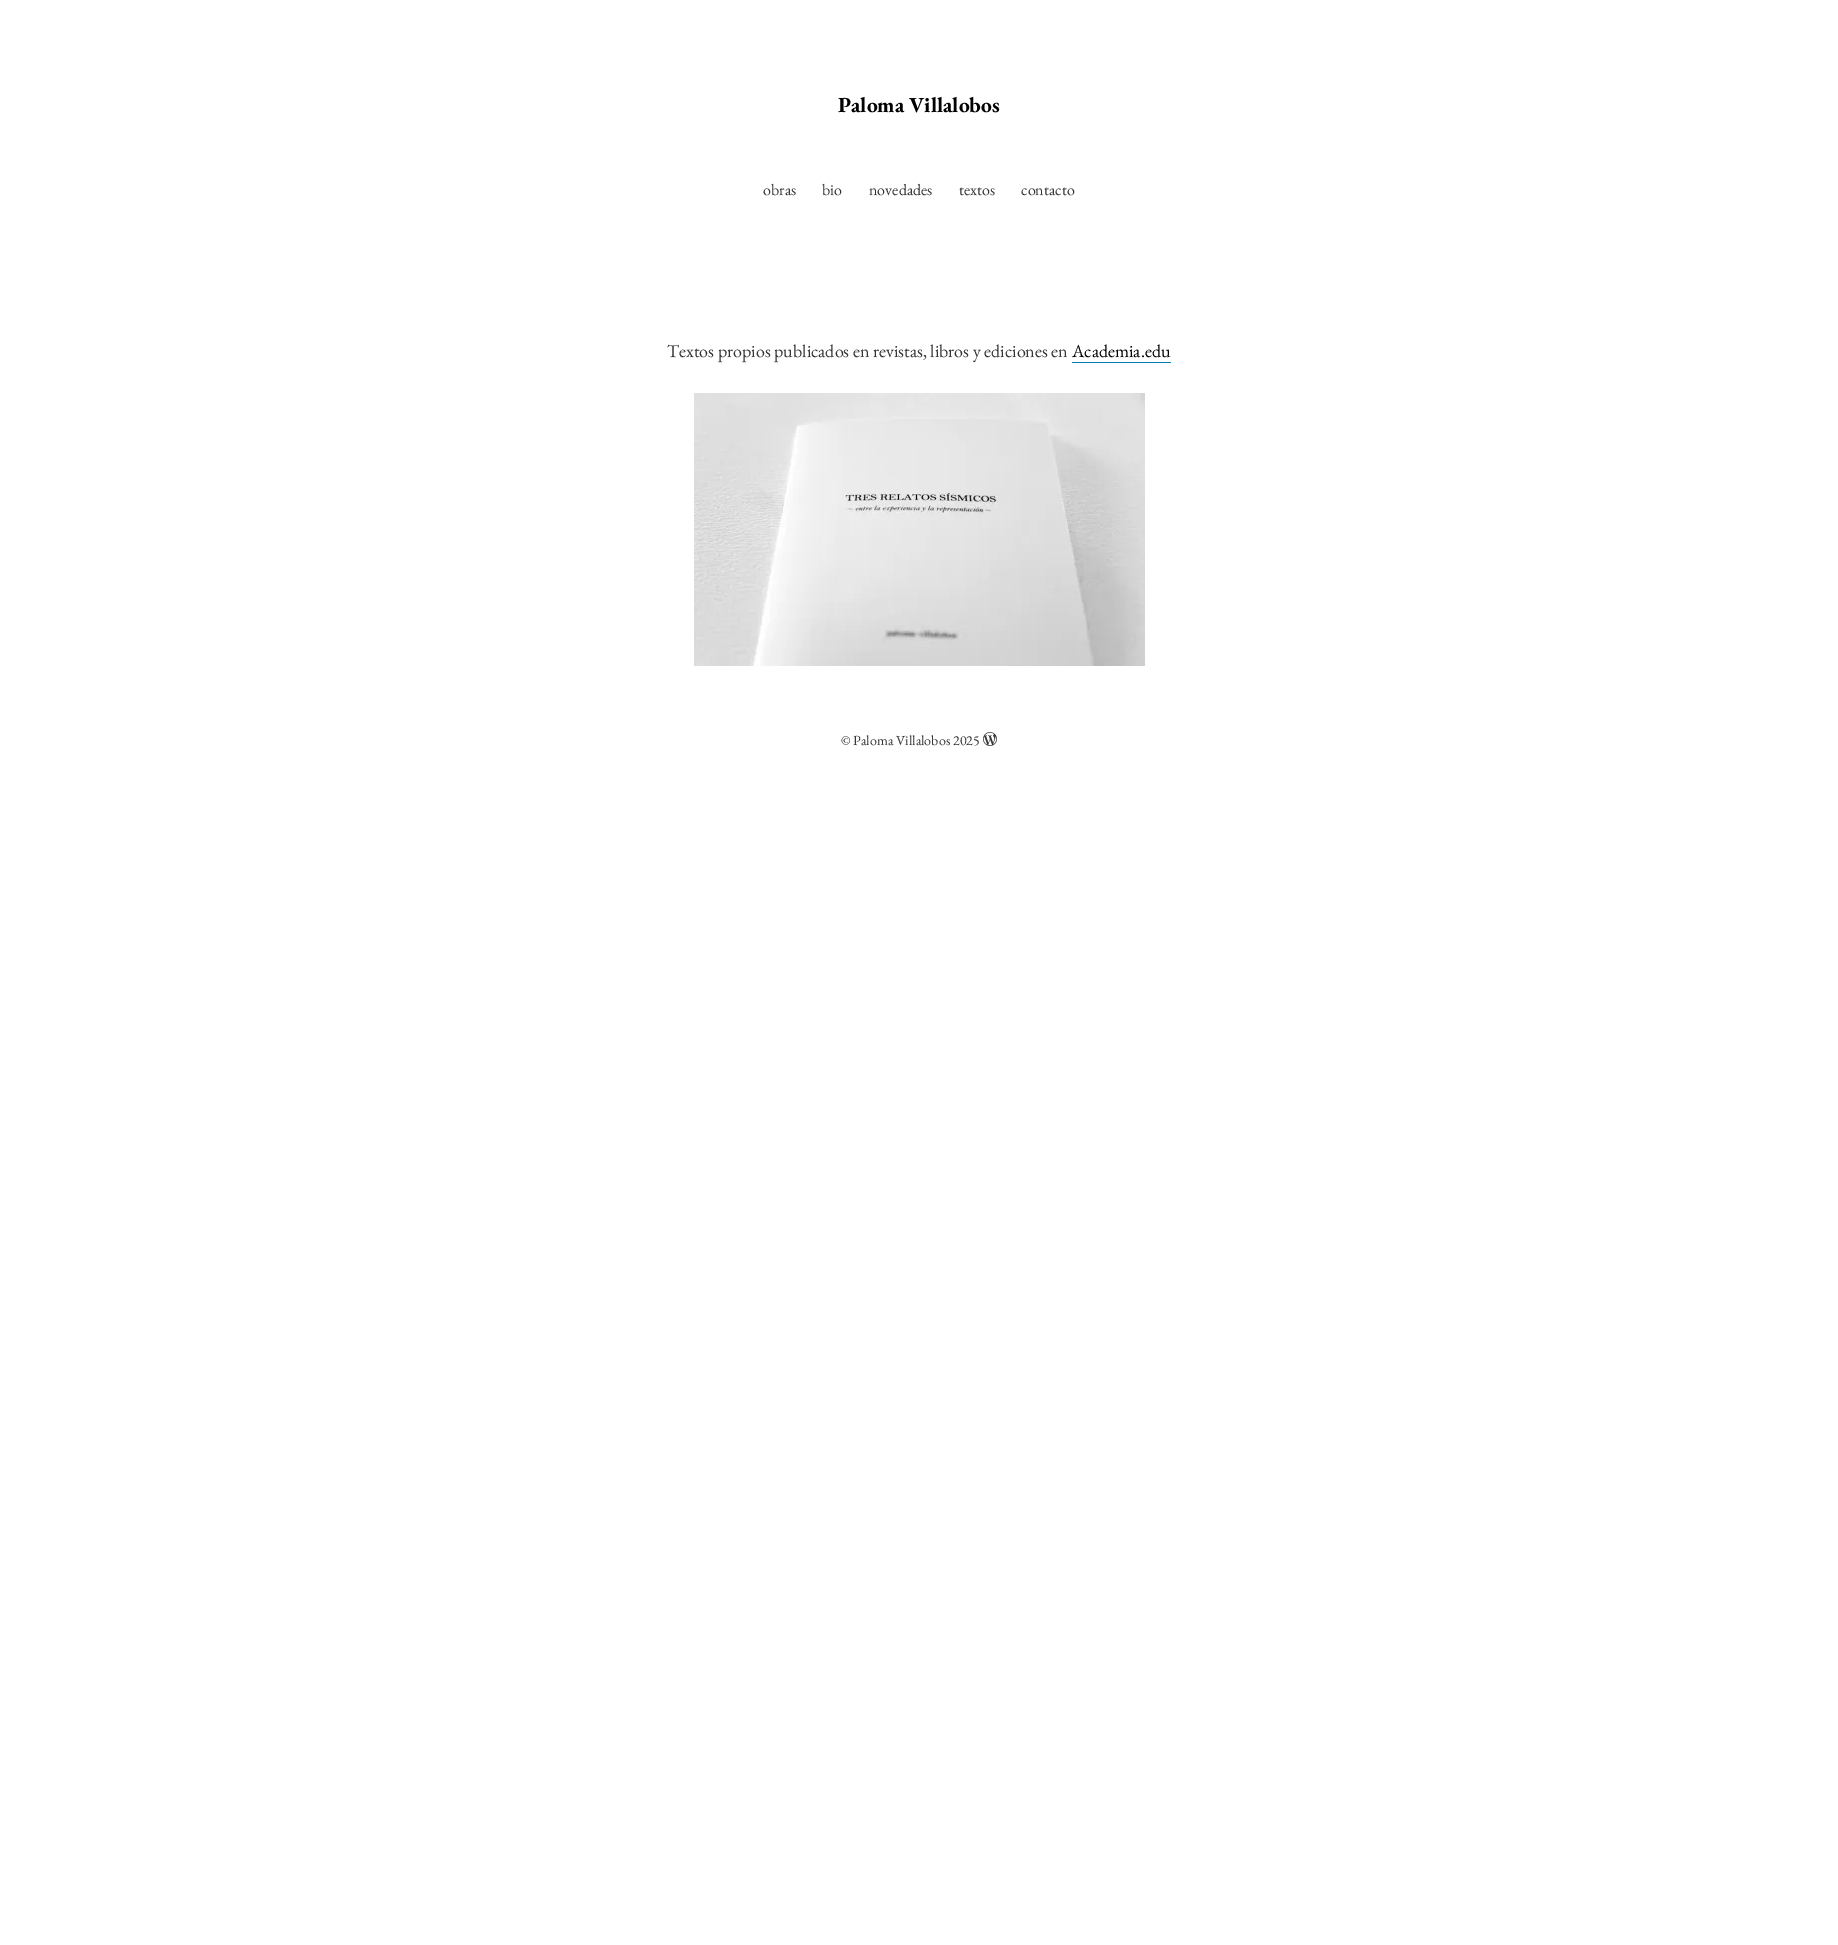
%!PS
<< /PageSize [1838 1945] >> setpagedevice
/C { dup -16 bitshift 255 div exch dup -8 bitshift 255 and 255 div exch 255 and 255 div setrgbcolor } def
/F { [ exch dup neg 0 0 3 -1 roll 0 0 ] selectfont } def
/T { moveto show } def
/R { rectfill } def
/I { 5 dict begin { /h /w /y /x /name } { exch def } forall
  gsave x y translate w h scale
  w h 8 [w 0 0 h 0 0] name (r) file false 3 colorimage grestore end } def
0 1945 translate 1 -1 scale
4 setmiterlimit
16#FFFFFF C
0 0 1838 1945 R
/EBGaramond-Bold 21.5 F
16#000000 C
(Paloma Villalobos) 838 112 T
/EBGaramond-Regular 16 F
16#333333 C
(obras) 763 195 T
(bio) 822 195 T
(novedades) 869 195 T
(textos) 959 195 T
(contacto) 1021 195 T
/EBGaramond-Regular 18 F
(Textos propios publicados en revistas, libros y ediciones en) 667 357 T
16#000000 C
(Academia.edu) 1072 357 T
16#007CBA C
1072 362 99 1 R
(1.rgb) 694 393 451 273 I
/EBGaramond-Regular 14 F
16#333333 C
(© Paloma Villalobos 2025) 841 745 T
(2.rgb) 983 732 14 14 I
showpage
